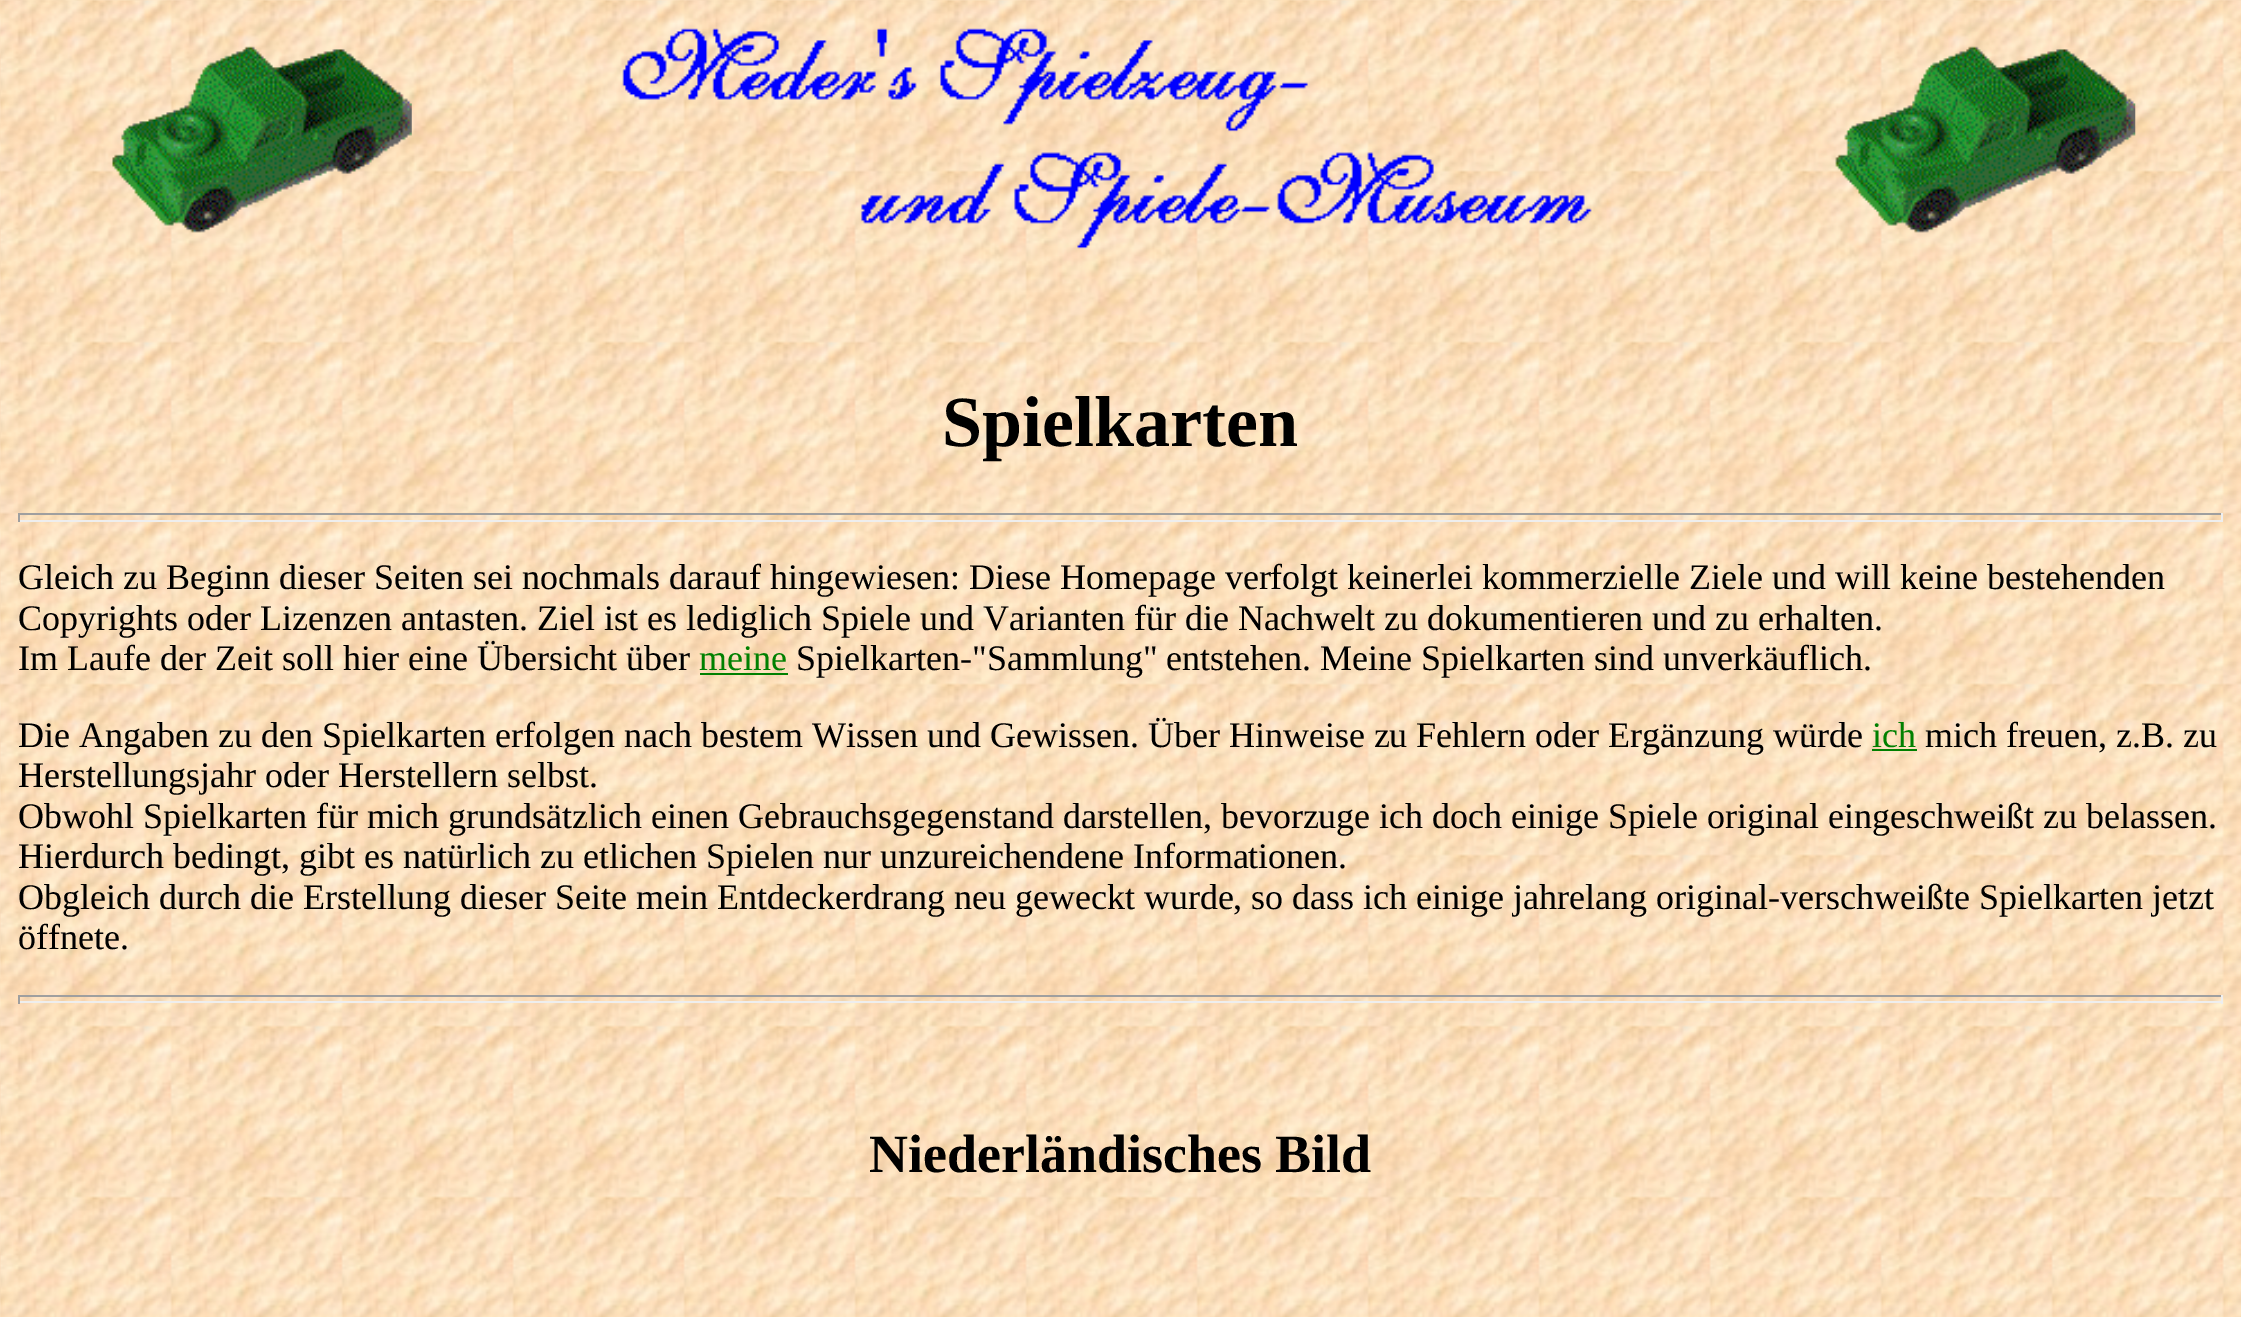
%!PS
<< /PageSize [2241 1317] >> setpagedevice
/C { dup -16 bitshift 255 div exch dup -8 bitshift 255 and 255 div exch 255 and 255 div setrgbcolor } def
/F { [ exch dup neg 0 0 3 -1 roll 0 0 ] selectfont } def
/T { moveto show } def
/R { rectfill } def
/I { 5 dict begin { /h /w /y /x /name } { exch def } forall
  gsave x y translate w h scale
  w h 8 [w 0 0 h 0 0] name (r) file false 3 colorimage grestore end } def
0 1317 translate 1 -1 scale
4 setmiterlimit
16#FFFFFF C
0 0 2241 1317 R
(1.rgb) 0 0 2241 1317 I
(2.rgb) 112 46 300 187 I
(3.rgb) 622 28 970 221 I
(4.rgb) 1835 46 301 187 I
/LiberationSerif-Bold 72 F
16#000000 C
(Spielkarten) 942 446 T
16#9F9F9F C
18 513 2205 2 R
16#EEEEEE C
2221 513 2 9 R
18 520 2205 2 R
16#9F9F9F C
18 513 2 9 R
/LiberationSerif-Regular 36 F
16#000000 C
(Gleich zu Beginn dieser Seiten sei nochmals darauf hingewiesen: Diese Homepage verfolgt keinerlei kommerzielle Ziele und will keine bestehenden) 18 589 T
(Copyrights oder Lizenzen antasten. Ziel ist es lediglich Spiele und Varianten für die Nachwelt zu dokumentieren und zu erhalten.) 18 630 T
(Im Laufe der Zeit soll hier eine Übersicht über) 18 670 T
16#008000 C
(meine) 699 670 T
700 673 88 2 R
16#000000 C
(Spielkarten-"Sammlung" entstehen. Meine Spielkarten sind unverkäuflich.) 796 670 T
(Die Angaben zu den Spielkarten erfolgen nach bestem Wissen und Gewissen. Über Hinweise zu Fehlern oder Ergänzung würde) 18 747 T
16#008000 C
(ich) 1872 747 T
1872 749 45 2 R
16#000000 C
(mich freuen, z.B. zu) 1925 747 T
(Herstellungsjahr oder Herstellern selbst.) 18 787 T
(Obwohl Spielkarten für mich grundsätzlich einen Gebrauchsgegenstand darstellen, bevorzuge ich doch einige Spiele original eingeschweißt zu belassen.) 18 828 T
(Hierdurch bedingt, gibt es natürlich zu etlichen Spielen nur unzureichendene Informationen.) 18 868 T
(Obgleich durch die Erstellung dieser Seite mein Entdeckerdrang neu geweckt wurde, so dass ich einige jahrelang original-verschweißte Spielkarten jetzt) 18 909 T
(öffnete.) 18 949 T
16#9F9F9F C
18 995 2205 2 R
16#EEEEEE C
2221 995 2 9 R
18 1001 2205 2 R
16#9F9F9F C
18 995 2 9 R
/LiberationSerif-Bold 54 F
16#000000 C
(Niederländisches Bild) 869 1172 T
showpage
